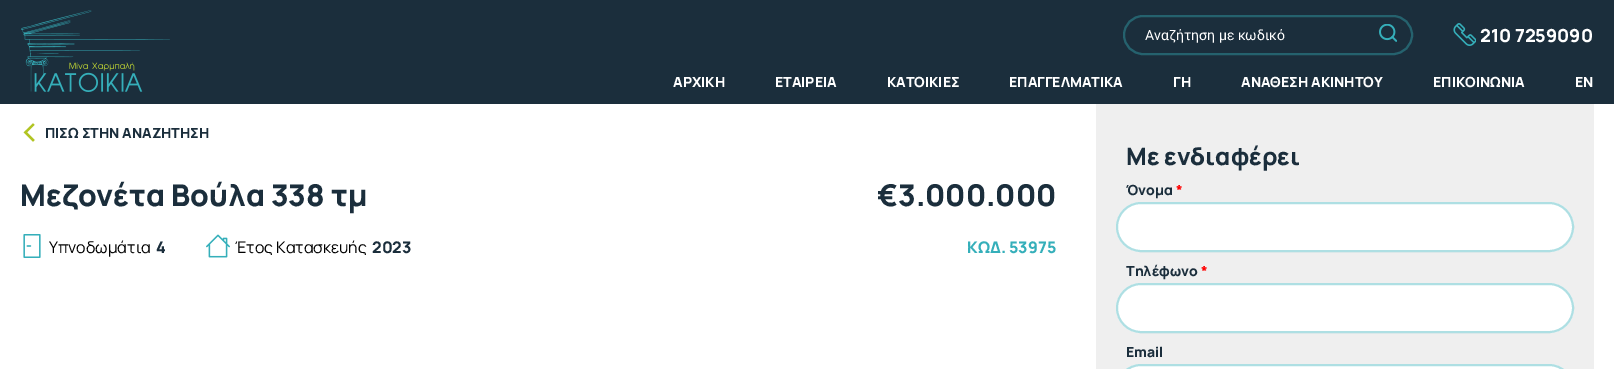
%!PS
<< /PageSize [1614 369] /PageUsesTransparency true >> setpagedevice
/f/fill load def
/s/stroke load def
/w/setlinewidth load def
/C { dup -16 bitshift 255 div exch dup -8 bitshift 255 and 255 div exch 255 and 255 div setrgbcolor } def
/F { [ exch dup neg 0 0 3 -1 roll 0 0 ] selectfont } def
/T { moveto show } def
/R { rectfill } def
/A { dup .setfillconstantalpha .setstrokeconstantalpha } def
/Q { 5 dict begin { /r /h /w /y /x } { exch def } forall
  x r add y moveto x w add y 2 copy h add r arct x w add y h add x 1 index r arct
  x y h add x y r arct x y 2 copy exch w add exch r arct closepath end } def
/I { 5 dict begin { /h /w /y /x /name } { exch def } forall
  gsave x y translate w h scale
  w h 8 [w 0 0 h 0 0] name (r) file false 3 colorimage grestore end } def
0 .pushpdf14devicefilter
0 369 translate 1 -1 scale
4 setmiterlimit
16#FFFFFF C
0 0 1614 369 R
16#1B2E3C C
0 0 1614 104 R
(1.rgb) 21 10 149 82 I
16#25626E C
2 w
1124 16 288 38 19 Q s
/Roboto-Regular 14 F
16#FFFFFF C
(Αναζήτηση με κωδικό) 1145 40 T
(2.rgb) 1379 24 18 18 I
(3.rgb) 1453 23 23 23 I
/Manrope-ExtraLight 18 F
(210 7259090) 1480 42 T
/Manrope-ExtraLight 14 F
(ΑΡΧΙΚΗ) 673 87 T
(ΕΤΑΙΡΕΙΑ) 775 87 T
(ΚΑΤΟΙΚΙΕΣ) 887 87 T
(ΕΠΑΓΓΕΛΜΑΤΙΚΑ) 1009 87 T
(ΓΗ) 1173 87 T
(ΑΝΑΘΕΣΗ ΑΚΙΝΗΤΟΥ) 1241 87 T
(ΕΠΙΚΟΙΝΩΝΙΑ) 1433 87 T
(EN) 1575 87 T
/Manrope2-ExtraLight 40 F
16#B1C422 C
(<) 18 145 T
/Manrope-ExtraLight 14 F
16#1B2E3C C
(ΠΙΣΩ ΣΤΗΝ ΑΝΑΖΗΤΗΣΗ) 45 138 T
/Manrope-ExtraLight 30 F
(Μεζονέτα Βούλα 338 τμ) 20 206 T
(€3.000.000) 877 206 T
(4.rgb) 23 234 18 24 I
/Manrope2-ExtraLight 16 F
16#000000 C
(Υπνοδωμάτια) 49 253 T
/Manrope-ExtraLight 16 F
16#1B2E3C C
(4) 156 253 T
(5.rgb) 206 234 24 24 I
/Manrope2-ExtraLight 16 F
16#000000 C
(Έτος Κατασκευής) 235 253 T
/Manrope-ExtraLight 16 F
16#1B2E3C C
(2023) 372 253 T
16#35AFBA C
(ΚΩΔ. 53975) 967 253 T
16#EFEFEF C
1096 104 498 265 R
/Manrope-ExtraLight 24 F
16#1B2E3C C
(Με ενδιαφέρει) 1126 165 T
/Manrope-ExtraLight 14 F
(Όνομα) 1126 195 T
16#FF0000 C
(*) 1176 195 T
16#FFFFFF C
1116 202 458 50 25 Q f
0.4 A
16#35AFBA C
1117 203 456 48 24 Q s
1 A
16#1B2E3C C
(Τηλέφωνο) 1126 276 T
16#FF0000 C
(*) 1201 276 T
16#FFFFFF C
1116 283 458 50 25 Q f
0.4 A
16#35AFBA C
1117 284 456 48 24 Q s
1 A
16#1B2E3C C
(Email) 1126 357 T
16#FFFFFF C
1116 364 458 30 25 Q f
0.4 A
16#35AFBA C
1117 365 456 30 24 Q s
.poppdf14devicefilter showpage
